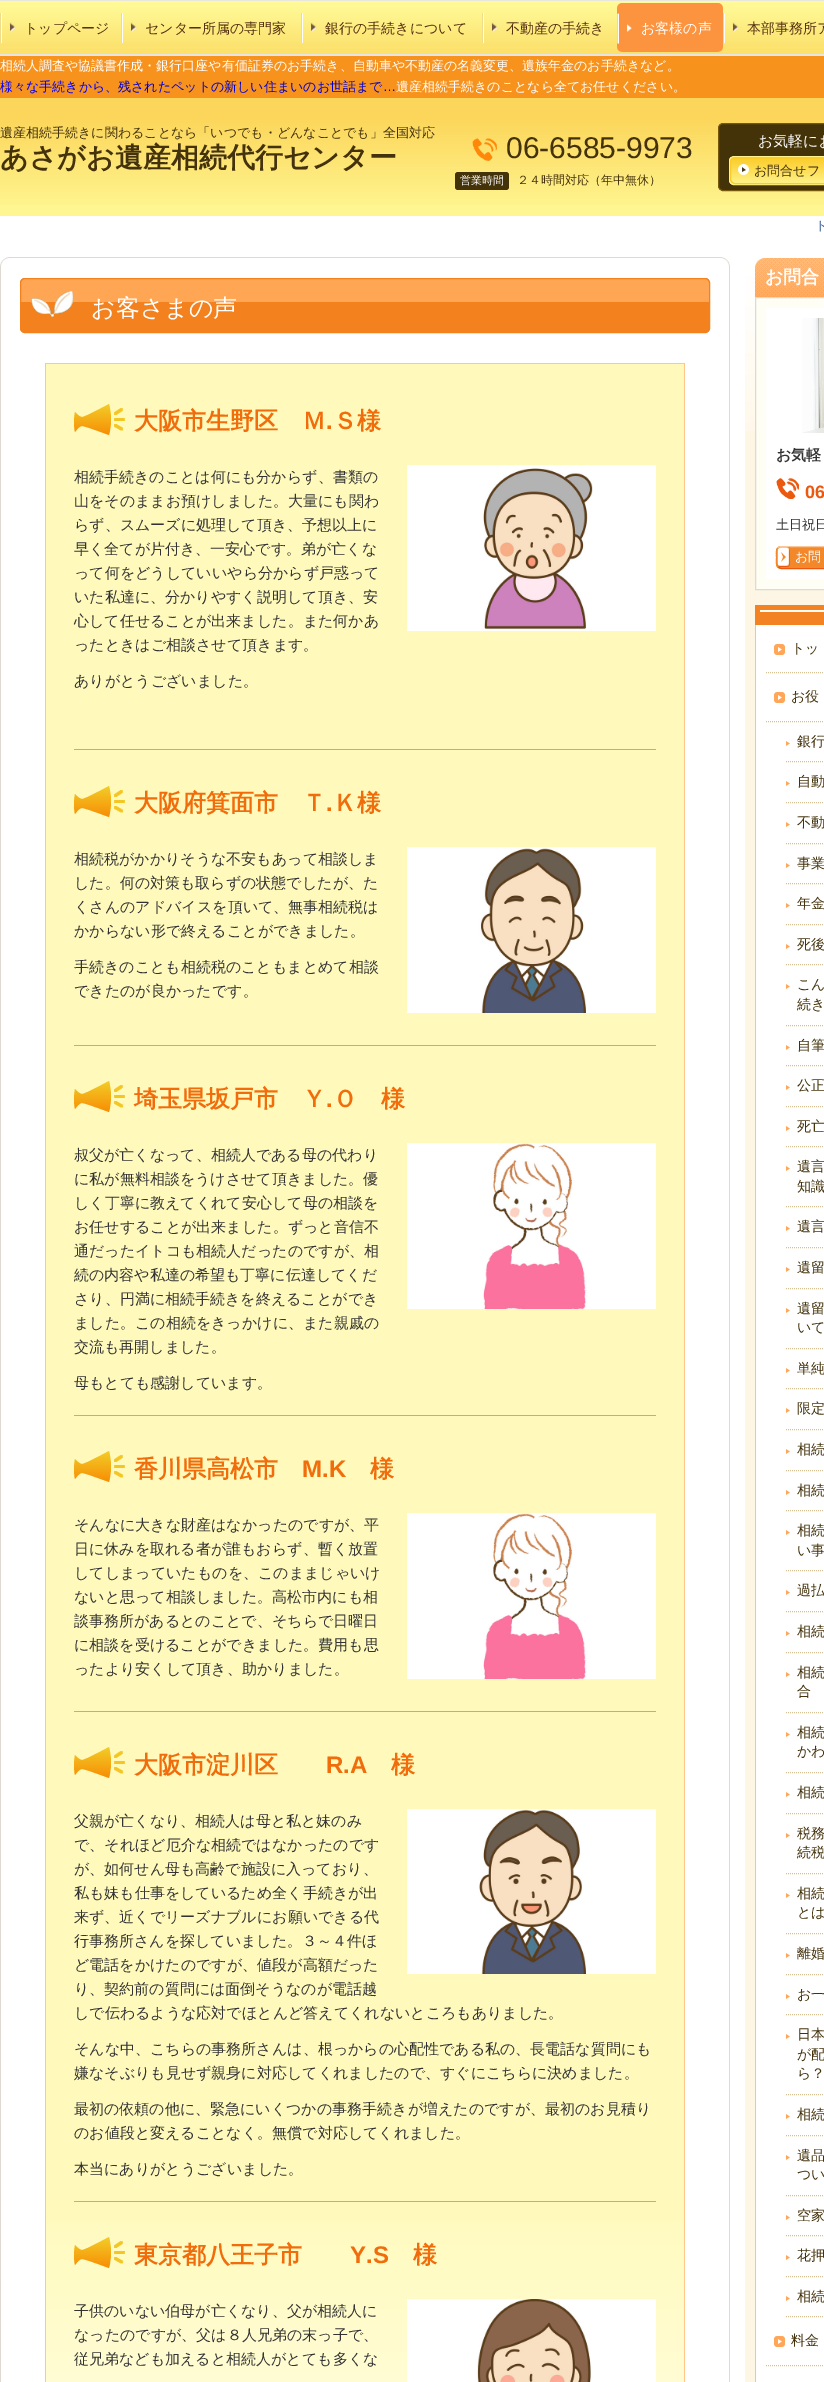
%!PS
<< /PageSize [824 2382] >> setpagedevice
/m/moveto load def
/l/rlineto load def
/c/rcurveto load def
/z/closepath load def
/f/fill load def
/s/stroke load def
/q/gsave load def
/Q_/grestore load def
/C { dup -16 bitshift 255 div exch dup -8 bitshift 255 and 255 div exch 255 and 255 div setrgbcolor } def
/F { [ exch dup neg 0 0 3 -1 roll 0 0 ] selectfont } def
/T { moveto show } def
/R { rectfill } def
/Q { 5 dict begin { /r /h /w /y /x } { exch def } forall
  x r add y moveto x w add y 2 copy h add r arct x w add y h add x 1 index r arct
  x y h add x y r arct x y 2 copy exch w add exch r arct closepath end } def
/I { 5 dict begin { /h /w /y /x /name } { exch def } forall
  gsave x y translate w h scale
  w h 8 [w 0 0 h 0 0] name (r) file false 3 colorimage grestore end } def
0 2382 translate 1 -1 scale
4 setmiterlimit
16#FFFFFF C
0 0 824 2382 R
(1.rgb) 0 1 824 53 I
16#E9E7DD C
0 0 824 1 R
16#E5E5E5 C
0 54 824 2 R
(2.rgb) 0 13 2 30 I
(3.rgb) 9 22 7 10 I
/WenQuanYiZenHei-Medium 14 F
16#563110 C
(トップページ) 24 33 T
(2.rgb) 121 13 2 30 I
(3.rgb) 130 22 7 10 I
(センター所属の専門家) 145 33 T
(2.rgb) 301 13 2 30 I
(4.rgb) 310 22 7 10 I
(銀行の手続きについて) 325 33 T
(2.rgb) 482 13 2 30 I
(3.rgb) 491 22 7 10 I
(不動産の手続き) 506 33 T
(5.rgb) 617 3 106 49 I
16#FFFFFF C
(お客様の声) 641 33 T
(2.rgb) 723 13 2 30 I
(3.rgb) 732 22 7 10 I
16#563110 C
(本部事務所ア) 747 33 T
16#FEF691 C
0 205 824 11 R
(6.rgb) 0 98 824 107 I
16#F7931D C
0 56 824 42 R
/WenQuanYiZenHei-Medium 13 F
16#FFFFFF C
(相続人調査や協議書作成・銀行口座や有価証券のお手続き、自動車や不動産の名義変更、遺族年金のお手続きなど。) 0 70 T
16#0000FF C
(様々な手続きから、) 0 91 T
16#0000CD C
(残されたペットの新しい住まいのお世話まで) 118 91 T
/LiberationSans-Regular 13 F
(…) 383 91 T
/WenQuanYiZenHei-Medium 13 F
16#FFFFFF C
(遺産相続手続きのことなら全てお任せください。) 396 91 T
16#44320C C
(遺産相続手続きに関わることなら「いつでも・どんなことでも」全国対応) 0 137 T
/WenQuanYiZenHei-Bold 28 F
(あさがお遺産相続代行センター) 0 167 T
(7.rgb) 472 138 25 23 I
/LiberationSans-Regular 30 F
(06-6585-9973) 506 158 T
16#443308 C
455 172 54 18 3 Q f
/WenQuanYiZenHei-Medium 11 F
16#FFFFFF C
(営業時間) 460 184 T
/WenQuanYiZenHei-Medium 12 F
16#44320C C
(２４時間対応（年中無休）) 517 184 T
16#443308 C
718.5 123.5 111 67 4.5 Q q f Q_
16#77590E C
s
/WenQuanYiZenHei-Medium 15 F
16#FFFFFF C
(お気軽にお) 758 146 T
(8.rgb) 729 157 95 28 I
16#FEF48B C
729.5 156.5 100 28 4.5 Q s
(9.rgb) 738 164 11 11 I
16#FBCB28 C
730.5 157.5 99 26 4.5 Q s
/WenQuanYiZenHei-Medium 13 F
16#44320C C
(お問合せフ) 754 175 T
16#335A93 C
(ト) 815 230 T
(10.rgb) 0 257 824 2125 I
(11.rgb) 0 257 730 9 I
16#F3811E C
20 278 690 55 5 Q f
(12.rgb) 20 279 690 50 I
20.5 278.5 689 54 4.5 Q s
(13.rgb) 31 291 42 26 I
/WenQuanYiZenHei-Medium 24 F
16#FFFFFF C
(お客さまの声) 91 316 T
16#FFFABB C
46 364 638 1858 R
(14.rgb) 46 2222 638 160 I
16#FFC789 C
45 363 640 1 R
684 363 1 2019 R
45 363 1 2019 R
(15.rgb) 74 404 51 31 I
/WenQuanYiZenHei-Bold 24 F
16#F16C0B C
(大阪市生野区　Ｍ) 134 429 T
/LiberationSans-Bold 24 F
(.) 326 429 T
/WenQuanYiZenHei-Bold 24 F
(Ｓ様) 333 429 T
/WenQuanYiZenHei-Medium 15 F
16#333333 C
(相続手続きのことは何にも分からず、書類の) 74 482 T
(山をそのままお預けしました。大量にも関わ) 74 506 T
(らず、スムーズに処理して頂き、予想以上に) 74 530 T
(早く全てが片付き、一安心です。弟が亡くな) 74 554 T
(って何をどうしていいやら分からず戸惑って) 74 578 T
(いた私達に、分かりやすく説明して頂き、安) 74 602 T
(心して任せることが出来ました。また何かあ) 74 626 T
(ったときはご相談させて頂きます。) 74 650 T
(ありがとうございました。) 74 686 T
(16.rgb) 407 465 249 166 I
16#BEB75B C
74 749 582 1 R
(15.rgb) 74 786 51 31 I
/WenQuanYiZenHei-Bold 24 F
16#F16C0B C
(大阪府箕面市　Ｔ) 134 811 T
/LiberationSans-Bold 24 F
(.) 326 811 T
/WenQuanYiZenHei-Bold 24 F
(Ｋ様) 333 811 T
/WenQuanYiZenHei-Medium 15 F
16#333333 C
(相続税がかかりそうな不安もあって相談しま) 74 864 T
(した。何の対策も取らずの状態でしたが、た) 74 888 T
(くさんのアドバイスを頂いて、無事相続税は) 74 912 T
(かからない形で終えることができました。) 74 936 T
(手続きのことも相続税のこともまとめて相談) 74 972 T
(できたのが良かったです。) 74 996 T
(17.rgb) 407 847 249 166 I
16#BEB75B C
74 1045 582 1 R
(15.rgb) 74 1081 51 31 I
/WenQuanYiZenHei-Bold 24 F
16#F16C0B C
(埼玉県坂戸市　Ｙ) 134 1107 T
/LiberationSans-Bold 24 F
(.) 326 1107 T
/WenQuanYiZenHei-Bold 24 F
(Ｏ　様) 333 1107 T
/WenQuanYiZenHei-Medium 15 F
16#333333 C
(叔父が亡くなって、相続人である母の代わり) 74 1160 T
(に私が無料相談をうけさせて頂きました。優) 74 1184 T
(しく丁寧に教えてくれて安心して母の相談を) 74 1208 T
(お任せすることが出来ました。ずっと音信不) 74 1232 T
(通だったイトコも相続人だったのですが、相) 74 1256 T
(続の内容や私達の希望も丁寧に伝達してくだ) 74 1280 T
(さり、円満に相続手続きを終えることができ) 74 1304 T
(ました。この相続をきっかけに、また親戚の) 74 1328 T
(交流も再開しました。) 74 1352 T
(母もとても感謝しています。) 74 1388 T
(18.rgb) 407 1143 249 166 I
16#BEB75B C
74 1415 582 1 R
(15.rgb) 74 1451 51 31 I
/WenQuanYiZenHei-Bold 24 F
16#F16C0B C
(香川県高松市) 134 1477 T
/LiberationSans-Bold 24 F
(M.K) 302 1477 T
/WenQuanYiZenHei-Bold 24 F
(様) 370 1477 T
/WenQuanYiZenHei-Medium 15 F
16#333333 C
(そんなに大きな財産はなかったのですが、平) 74 1530 T
(日に休みを取れる者が誰もおらず、暫く放置) 74 1554 T
(してしまっていたものを、このままじゃいけ) 74 1578 T
(ないと思って相談しました。高松市内にも相) 74 1602 T
(談事務所があるとのことで、そちらで日曜日) 74 1626 T
(に相談を受けることができました。費用も思) 74 1650 T
(ったより安くして頂き、助かりました。) 74 1674 T
(19.rgb) 407 1513 249 166 I
16#BEB75B C
74 1711 582 1 R
(15.rgb) 74 1747 51 31 I
/WenQuanYiZenHei-Bold 24 F
16#F16C0B C
(大阪市淀川区) 134 1773 T
/LiberationSans-Bold 24 F
(R.A) 326 1773 T
/WenQuanYiZenHei-Bold 24 F
(様) 391 1773 T
(20.rgb) 407 1809 249 165 I
/WenQuanYiZenHei-Medium 15 F
16#333333 C
(父親が亡くなり、相続人は母と私と妹のみ) 74 1826 T
(で、それほど厄介な相続ではなかったのです) 74 1850 T
(が、如何せん母も高齢で施設に入っており、) 74 1874 T
(私も妹も仕事をしているため全く手続きが出) 74 1898 T
(来ず、近くでリーズナブルにお願いできる代) 74 1922 T
(行事務所さんを探していました。３～４件ほ) 74 1946 T
(ど電話をかけたのですが、値段が高額だった) 74 1970 T
(り、契約前の質問には面倒そうなのが電話越) 74 1994 T
(しで伝わるような応対でほとんど答えてくれないところもありました。) 74 2018 T
(そんな中、こちらの事務所さんは、根っからの心配性である私の、長電話な質問にも) 74 2054 T
(嫌なそぶりも見せず親身に対応してくれましたので、すぐにこちらに決めました。) 74 2078 T
(最初の依頼の他に、緊急にいくつかの事務手続きが増えたのですが、最初のお見積り) 74 2114 T
(のお値段と変えることなく。無償で対応してくれました。) 74 2138 T
(本当にありがとうございました。) 74 2174 T
16#BEB75B C
74 2201 582 1 R
(21.rgb) 74 2237 51 31 I
/WenQuanYiZenHei-Bold 24 F
16#F16C0B C
(東京都八王子市) 134 2263 T
/LiberationSans-Bold 24 F
(Y.S) 350 2263 T
/WenQuanYiZenHei-Bold 24 F
(様) 413 2263 T
/WenQuanYiZenHei-Medium 15 F
16#333333 C
(子供のいない伯母が亡くなり、父が相続人に) 74 2316 T
(なったのですが、父は８人兄弟の末っ子で、) 74 2340 T
(従兄弟なども加えると相続人がとても多くな) 74 2364 T
(22.rgb) 407 2299 249 83 I
(23.rgb) 745 257 79 174 I
(24.rgb) 755 258 69 39 I
/WenQuanYiZenHei-Bold 18 F
16#FFFFFF C
(お問合) 765 283 T
16#FFFEF4 C
755.5 297.5 m 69 0 l 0 292 l -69 0 l z q f Q_
16#DEDAD1 C
s
16#FFFFFF C
766 308 58 271 R
(25.rgb) 802 318 22 115 I
/WenQuanYiZenHei-Bold 15 F
16#333333 C
(お気軽) 776 460 T
(26.rgb) 776 478 23 21 I
/LiberationSans-Bold 18 F
16#EB5910 C
(06) 805 498 T
/WenQuanYiZenHei-Medium 13 F
16#333333 C
(土日祝日) 776 529 T
16#F3882B C
776 546 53 23 5 Q f
16#F9C79A C
778 548 m .5 -1 2 -1.5 3 -1.5 c 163 0 l 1 0 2.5 .5 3 1.5 c s
16#EB5910 C
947 548 m 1.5 3 l 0 8.5 l 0 3.5 .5 9 -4.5 9 c -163 0 l -3 -1.5 l s
16#F3882B C
778 567 m -2.5 -2 -1.5 -6.5 -1.5 -9.5 c 0 -3 -1 -7.5 1.5 -9.5 c s
(27.rgb) 777 547 13 20 I
16#FFFFFF C
(お問) 795 561 T
(28.rgb) 755 605 69 20 I
756 625 68 1757 R
16#CCCCCC C
755 625 1 1757 R
(29.rgb) 774 644 11 11 I
16#D6C095 C
[1 1] 0 setdash
766 672.5 m 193 0 l s
/WenQuanYiZenHei-Medium 14 F
16#44320C C
(トッ) 791 653 T
(29.rgb) 774 692 11 11 I
16#D6C095 C
766 721.5 m 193 0 l s
16#44320C C
(お役) 791 701 T
(30.rgb) 786 741 4 5 I
16#D6C095 C
786 761.5 m 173 0 l s
16#44320C C
(銀行) 797 746 T
(30.rgb) 786 781 4 5 I
16#D6C095 C
786 802.5 m 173 0 l s
16#44320C C
(自動) 797 786 T
(30.rgb) 786 822 4 5 I
16#D6C095 C
786 843.5 m 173 0 l s
16#44320C C
(不動) 797 827 T
(30.rgb) 786 863 4 5 I
16#D6C095 C
786 883.5 m 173 0 l s
16#44320C C
(事業) 797 868 T
(30.rgb) 786 903 4 5 I
16#D6C095 C
786 924.5 m 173 0 l s
16#44320C C
(年金) 797 908 T
(30.rgb) 786 944 4 5 I
16#D6C095 C
786 964.5 m 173 0 l s
16#44320C C
(死後) 797 949 T
(30.rgb) 786 984 4 5 I
16#D6C095 C
786 1025.5 m 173 0 l s
16#44320C C
(こん) 797 989 T
(続き) 797 1009 T
(30.rgb) 786 1045 4 5 I
16#D6C095 C
786 1065.5 m 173 0 l s
16#44320C C
(自筆) 797 1050 T
(30.rgb) 786 1085 4 5 I
16#D6C095 C
786 1106.5 m 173 0 l s
16#44320C C
(公正) 797 1090 T
(30.rgb) 786 1126 4 5 I
16#D6C095 C
786 1146.5 m 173 0 l s
16#44320C C
(死亡) 797 1131 T
(30.rgb) 786 1166 4 5 I
16#D6C095 C
786 1206.5 m 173 0 l s
16#44320C C
(遺言) 797 1171 T
(知識) 797 1191 T
(30.rgb) 786 1226 4 5 I
16#D6C095 C
786 1247.5 m 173 0 l s
16#44320C C
(遺言) 797 1231 T
(30.rgb) 786 1267 4 5 I
16#D6C095 C
786 1288.5 m 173 0 l s
16#44320C C
(遺留) 797 1272 T
(30.rgb) 786 1308 4 5 I
16#D6C095 C
786 1348.5 m 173 0 l s
16#44320C C
(遺留) 797 1313 T
(いて) 797 1332 T
(30.rgb) 786 1368 4 5 I
16#D6C095 C
786 1388.5 m 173 0 l s
16#44320C C
(単純) 797 1373 T
(30.rgb) 786 1408 4 5 I
16#D6C095 C
786 1429.5 m 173 0 l s
16#44320C C
(限定) 797 1413 T
(30.rgb) 786 1449 4 5 I
16#D6C095 C
786 1470.5 m 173 0 l s
16#44320C C
(相続) 797 1454 T
(30.rgb) 786 1490 4 5 I
16#D6C095 C
786 1510.5 m 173 0 l s
16#44320C C
(相続) 797 1495 T
(30.rgb) 786 1530 4 5 I
16#D6C095 C
786 1570.5 m 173 0 l s
16#44320C C
(相続) 797 1535 T
(い事) 797 1555 T
(30.rgb) 786 1590 4 5 I
16#D6C095 C
786 1611.5 m 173 0 l s
16#44320C C
(過払) 797 1595 T
(30.rgb) 786 1631 4 5 I
16#D6C095 C
786 1652.5 m 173 0 l s
16#44320C C
(相続) 797 1636 T
(30.rgb) 786 1672 4 5 I
16#D6C095 C
786 1712.5 m 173 0 l s
16#44320C C
(相続) 797 1677 T
(合) 797 1696 T
(30.rgb) 786 1732 4 5 I
16#D6C095 C
786 1772.5 m 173 0 l s
16#44320C C
(相続) 797 1737 T
(かわ) 797 1756 T
(30.rgb) 786 1792 4 5 I
16#D6C095 C
786 1813.5 m 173 0 l s
16#44320C C
(相続) 797 1797 T
(30.rgb) 786 1833 4 5 I
16#D6C095 C
786 1873.5 m 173 0 l s
16#44320C C
(税務) 797 1838 T
(続税) 797 1857 T
(30.rgb) 786 1893 4 5 I
16#D6C095 C
786 1933.5 m 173 0 l s
16#44320C C
(相続) 797 1898 T
(とは) 797 1917 T
(30.rgb) 786 1953 4 5 I
16#D6C095 C
786 1974.5 m 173 0 l s
16#44320C C
(離婚) 797 1958 T
(30.rgb) 786 1994 4 5 I
16#D6C095 C
786 2014.5 m 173 0 l s
16#44320C C
(お一) 797 1999 T
(30.rgb) 786 2034 4 5 I
16#D6C095 C
786 2094.5 m 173 0 l s
16#44320C C
(日本) 797 2039 T
(が配) 797 2059 T
(ら？) 797 2078 T
(30.rgb) 786 2114 4 5 I
16#D6C095 C
786 2135.5 m 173 0 l s
16#44320C C
(相続) 797 2119 T
(30.rgb) 786 2155 4 5 I
16#D6C095 C
786 2195.5 m 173 0 l s
16#44320C C
(遺品) 797 2160 T
(つい) 797 2179 T
(30.rgb) 786 2215 4 5 I
16#D6C095 C
786 2235.5 m 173 0 l s
16#44320C C
(空家) 797 2220 T
(30.rgb) 786 2255 4 5 I
16#D6C095 C
786 2276.5 m 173 0 l s
16#44320C C
(花押) 797 2260 T
(30.rgb) 786 2296 4 5 I
16#D6C095 C
786 2316.5 m 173 0 l s
16#44320C C
(相続) 797 2301 T
(29.rgb) 774 2336 11 11 I
16#D6C095 C
766 2365.5 m 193 0 l s
16#44320C C
(料金) 791 2345 T
showpage
